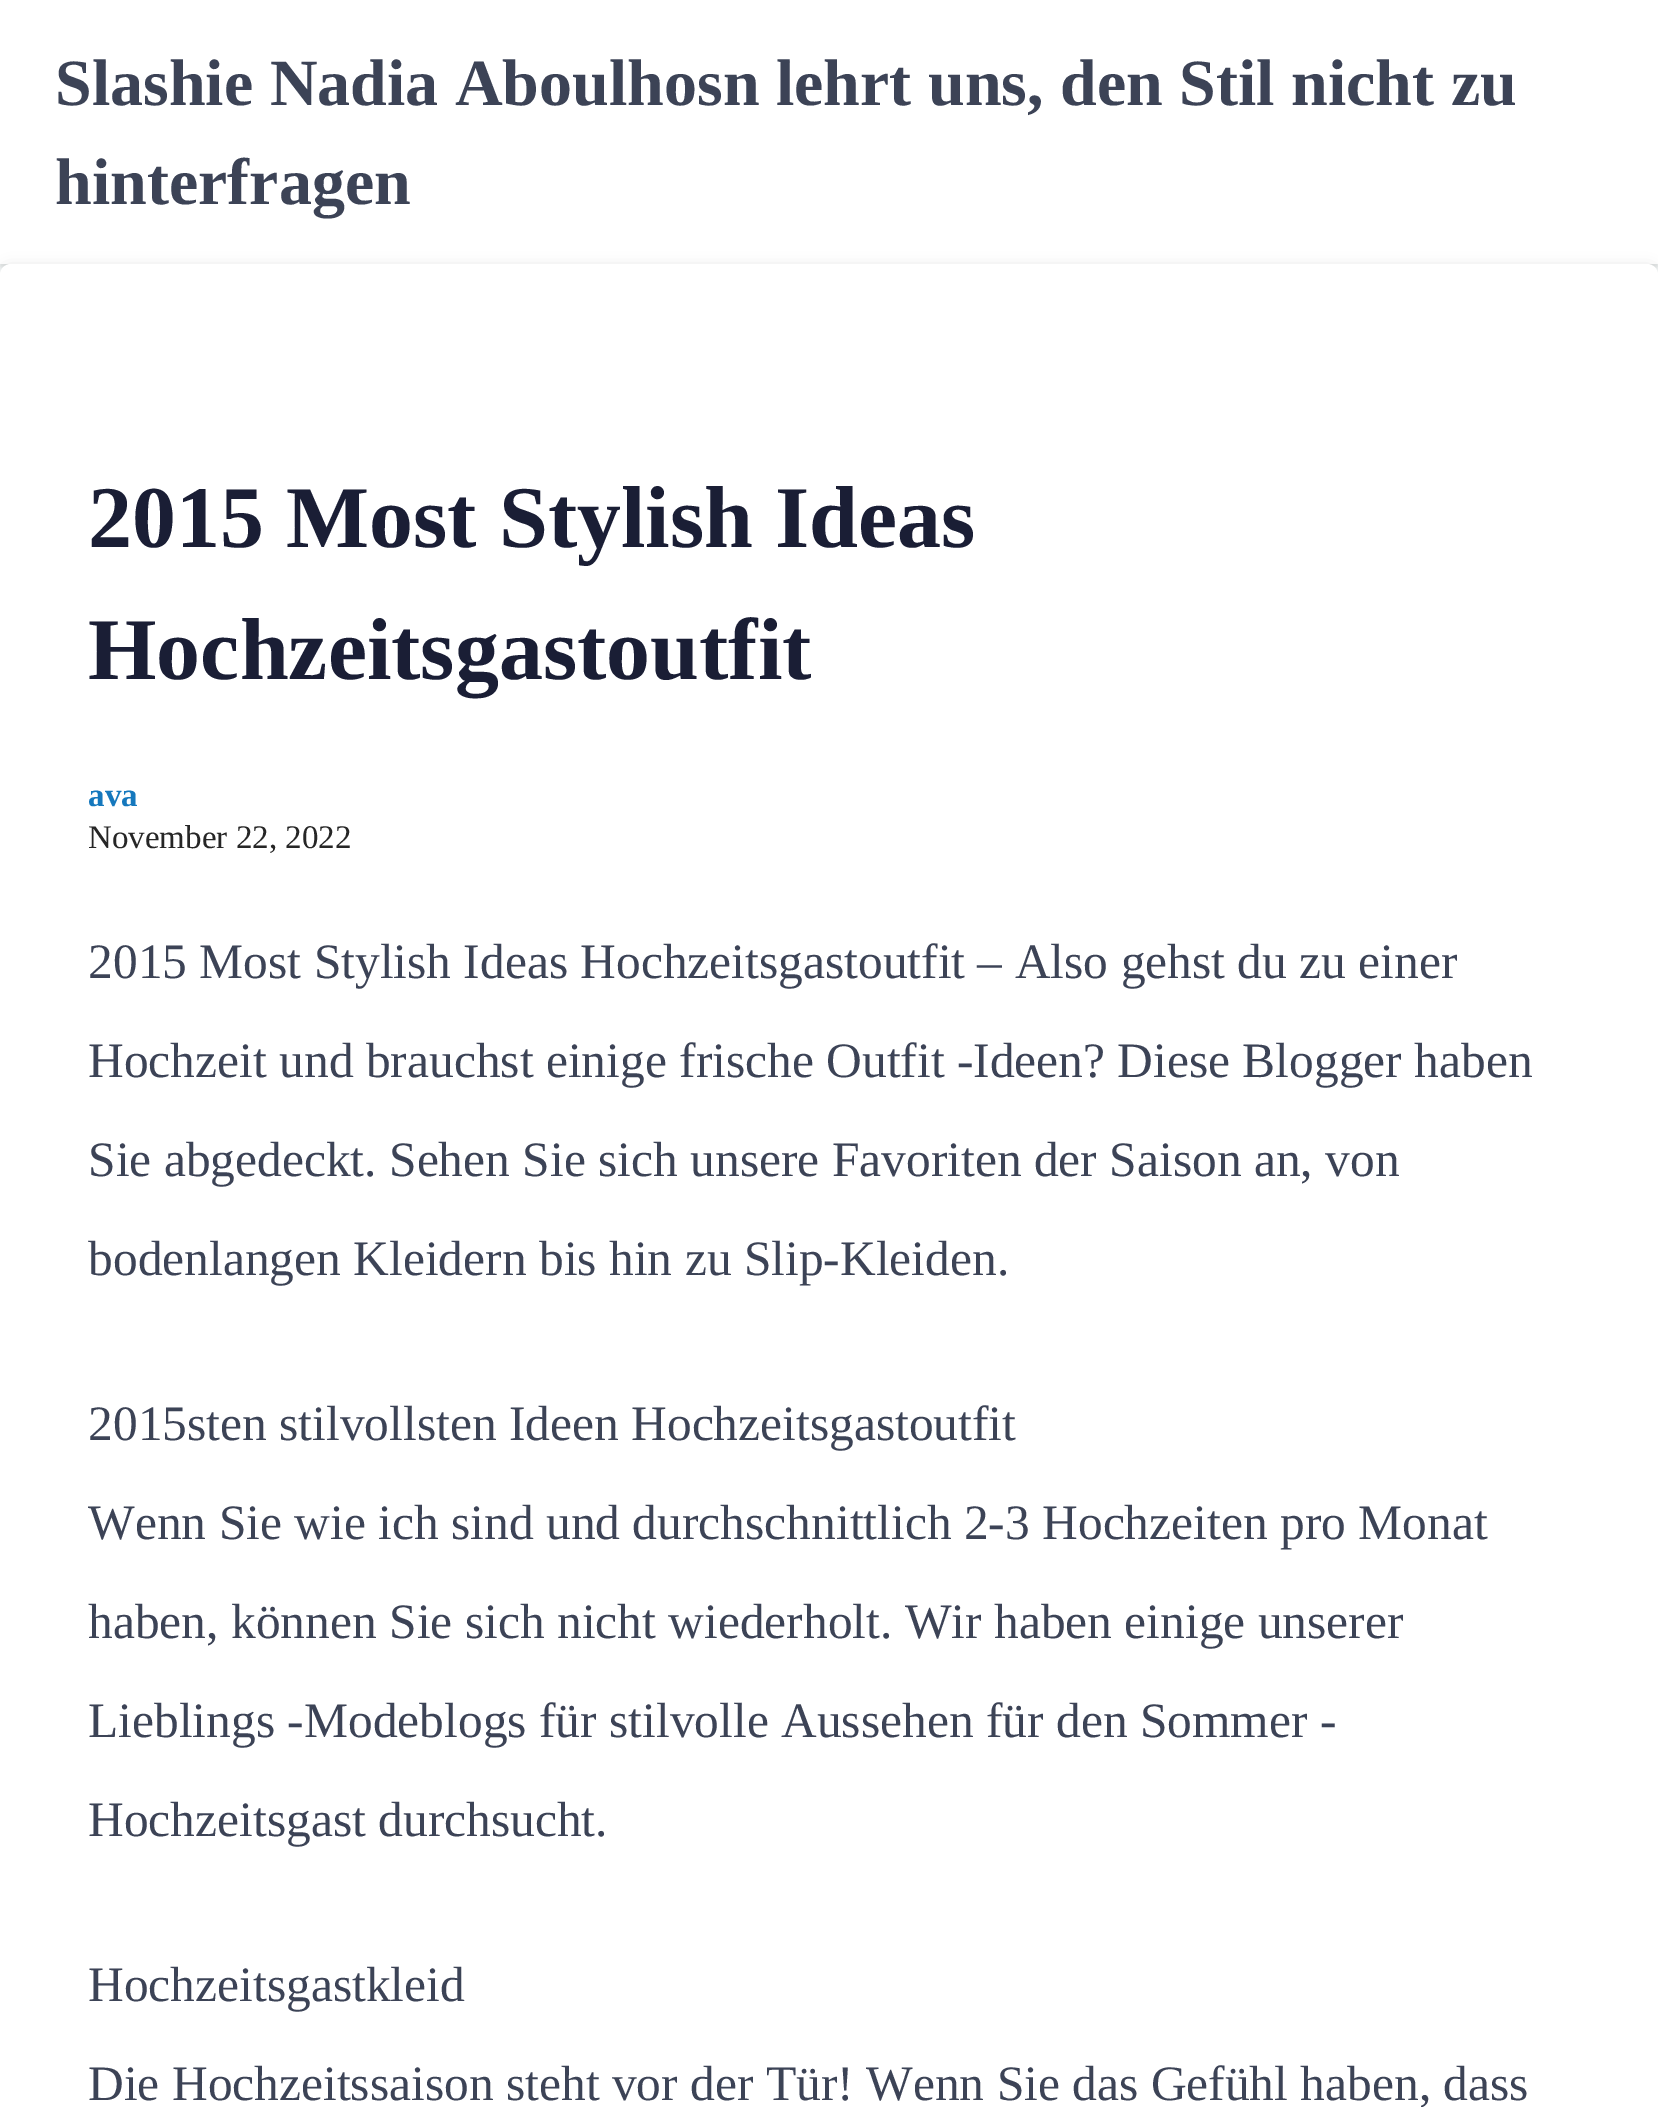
%!PS
<< /PageSize [1658 2107] /PageUsesTransparency true >> setpagedevice
/f/fill load def
/C { dup -16 bitshift 255 div exch dup -8 bitshift 255 and 255 div exch 255 and 255 div setrgbcolor } def
/F { [ exch dup neg 0 0 3 -1 roll 0 0 ] selectfont } def
/T { moveto show } def
/R { rectfill } def
/A { dup .setfillconstantalpha .setstrokeconstantalpha } def
/Q { 5 dict begin { /r /h /w /y /x } { exch def } forall
  x r add y moveto x w add y 2 copy h add r arct x w add y h add x 1 index r arct
  x y h add x y r arct x y 2 copy exch w add exch r arct closepath end } def
/S { 12 dict begin { /a /b /q /h /w /y /x } { exch def } forall gsave /was 0 def
  9 -2 -9 { dup b mul 4 div /e exch def 1 sub .425 mul 2.718 exch exp 1 add a .99 .min exch div /now exch def
    1 1 now sub 1 was sub div sub A /was now def
    w h .min e 2 mul add 0 gt { x e sub y e sub w e 2 mul add h e 2 mul add
      q e add b .6 mul add w h .min 2 div e add .min 0 .max Q fill } if } for grestore end } def
0 .pushpdf14devicefilter
0 2107 translate 1 -1 scale
4 setmiterlimit
16#F8FBFB C
0 0 1658 2107 R
16#000000 C
0 3 1658 264 0 1.5 .1 S
16#FFFFFF C
0 0 1658 264 R
/LiberationSerif-Bold 66 F
16#3C4356 C
(Slashie Nadia Aboulhosn lehrt uns, den Stil nicht zu) 55 105 T
(hinterfragen) 55 204 T
16#000000 C
0 267 1658 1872 11 7 .12 S
16#FFFFFF C
0 264 1658 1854 11 Q f
/LiberationSerif-Bold 88 F
16#1A1E35 C
(2015 Most Stylish Ideas) 88 547 T
(Hochzeitsgastoutfit) 88 679 T
/LiberationSerif-Bold 33 F
16#1578BD C
(ava) 88 806 T
/LiberationSerif-Regular 33 F
16#262626 C
(November 22, 2022) 88 848 T
/LiberationSerif-Regular 49.5 F
16#3C4356 C
(2015 Most Stylish Ideas Hochzeitsgastoutfit – Also gehst du zu einer) 88 978 T
(Hochzeit und brauchst einige frische Outfit -Ideen? Diese Blogger haben) 88 1077 T
(Sie abgedeckt. Sehen Sie sich unsere Favoriten der Saison an, von) 88 1176 T
(bodenlangen Kleidern bis hin zu Slip-Kleiden.) 88 1275 T
(2015sten stilvollsten Ideen Hochzeitsgastoutfit) 88 1440 T
(Wenn Sie wie ich sind und durchschnittlich 2-3 Hochzeiten pro Monat) 88 1539 T
(haben, können Sie sich nicht wiederholt. Wir haben einige unserer) 88 1638 T
(Lieblings -Modeblogs für stilvolle Aussehen für den Sommer -) 88 1737 T
(Hochzeitsgast durchsucht.) 88 1836 T
(Hochzeitsgastkleid) 88 2001 T
(Die Hochzeitssaison steht vor der Tür! Wenn Sie das Gefühl haben, dass) 88 2100 T
.poppdf14devicefilter showpage
